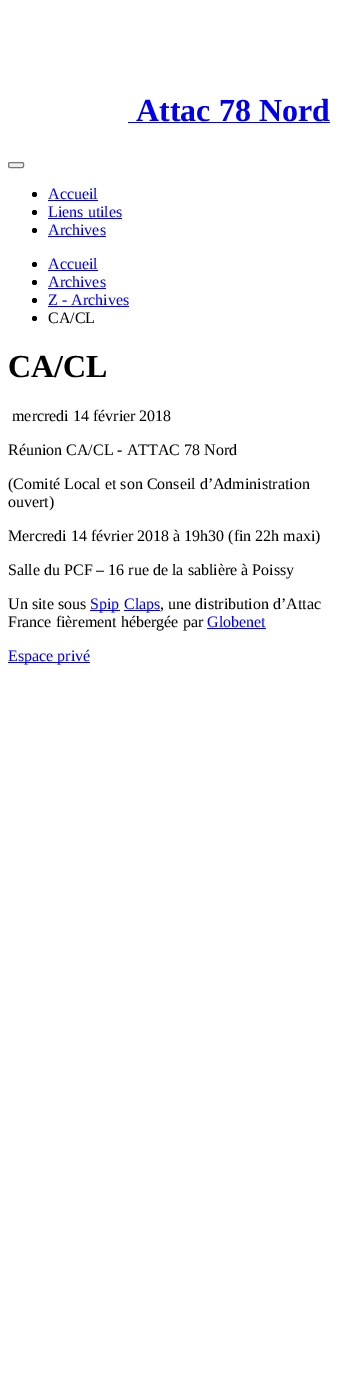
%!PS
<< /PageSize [348 1392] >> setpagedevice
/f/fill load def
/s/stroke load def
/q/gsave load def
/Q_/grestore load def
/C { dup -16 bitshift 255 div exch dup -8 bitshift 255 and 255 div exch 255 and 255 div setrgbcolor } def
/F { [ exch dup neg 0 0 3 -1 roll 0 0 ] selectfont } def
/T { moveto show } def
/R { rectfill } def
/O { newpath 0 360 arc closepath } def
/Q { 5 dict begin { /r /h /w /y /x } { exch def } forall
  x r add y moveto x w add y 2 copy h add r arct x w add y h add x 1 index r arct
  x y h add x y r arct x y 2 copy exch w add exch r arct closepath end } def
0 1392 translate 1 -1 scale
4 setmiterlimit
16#FFFFFF C
0 0 348 1392 R
/LiberationSerif-Bold 32 F
16#0000EE C
(Attac 78 Nord) 136 121 T
128 122 202 1 R
16#EFEFEF C
8.5 162.5 15 5 1.5 Q q f Q_
16#767676 C
s
16#000000 C
34.5 194.5 2.5 O f
/LiberationSerif-Regular 16 F
16#0000EE C
(Accueil) 48 199 T
48 200 50 1 R
16#000000 C
34.5 212.5 2.5 O f
16#0000EE C
(Liens utiles) 48 217 T
48 218 74 1 R
16#000000 C
34.5 230.5 2.5 O f
16#0000EE C
(Archives) 48 235 T
48 236 58 1 R
16#000000 C
34.5 264.5 2.5 O f
16#0000EE C
(Accueil) 48 269 T
48 270 50 1 R
16#000000 C
34.5 282.5 2.5 O f
16#0000EE C
(Archives) 48 287 T
48 288 58 1 R
16#000000 C
34.5 300.5 2.5 O f
16#0000EE C
(Z - Archives) 48 305 T
48 306 81 1 R
16#000000 C
34.5 318.5 2.5 O f
(CA/CL) 48 323 T
/LiberationSerif-Bold 32 F
(CA/CL) 8 377 T
/LiberationSerif-Regular 16 F
(mercredi 14 février 2018) 12 421 T
(Réunion CA/CL - ATTAC 78 Nord) 8 455 T
(\(Comité Local et son Conseil d’Administration) 8 489 T
(ouvert\)) 8 507 T
(Mercredi 14 février 2018 à 19h30 \(fin 22h maxi\)) 8 541 T
(Salle du PCF – 16 rue de la sablière à Poissy) 8 575 T
(Un site sous) 8 609 T
16#0000EE C
90 610 30 1 R
(Spip) 90 609 T
124 610 36 1 R
(Claps) 124 609 T
16#000000 C
(, une distribution d’Attac) 160 609 T
(France fièrement hébergée par) 8 627 T
16#0000EE C
(Globenet) 207 627 T
207 628 59 1 R
8 662 82 1 R
(Espace privé) 8 661 T
showpage
